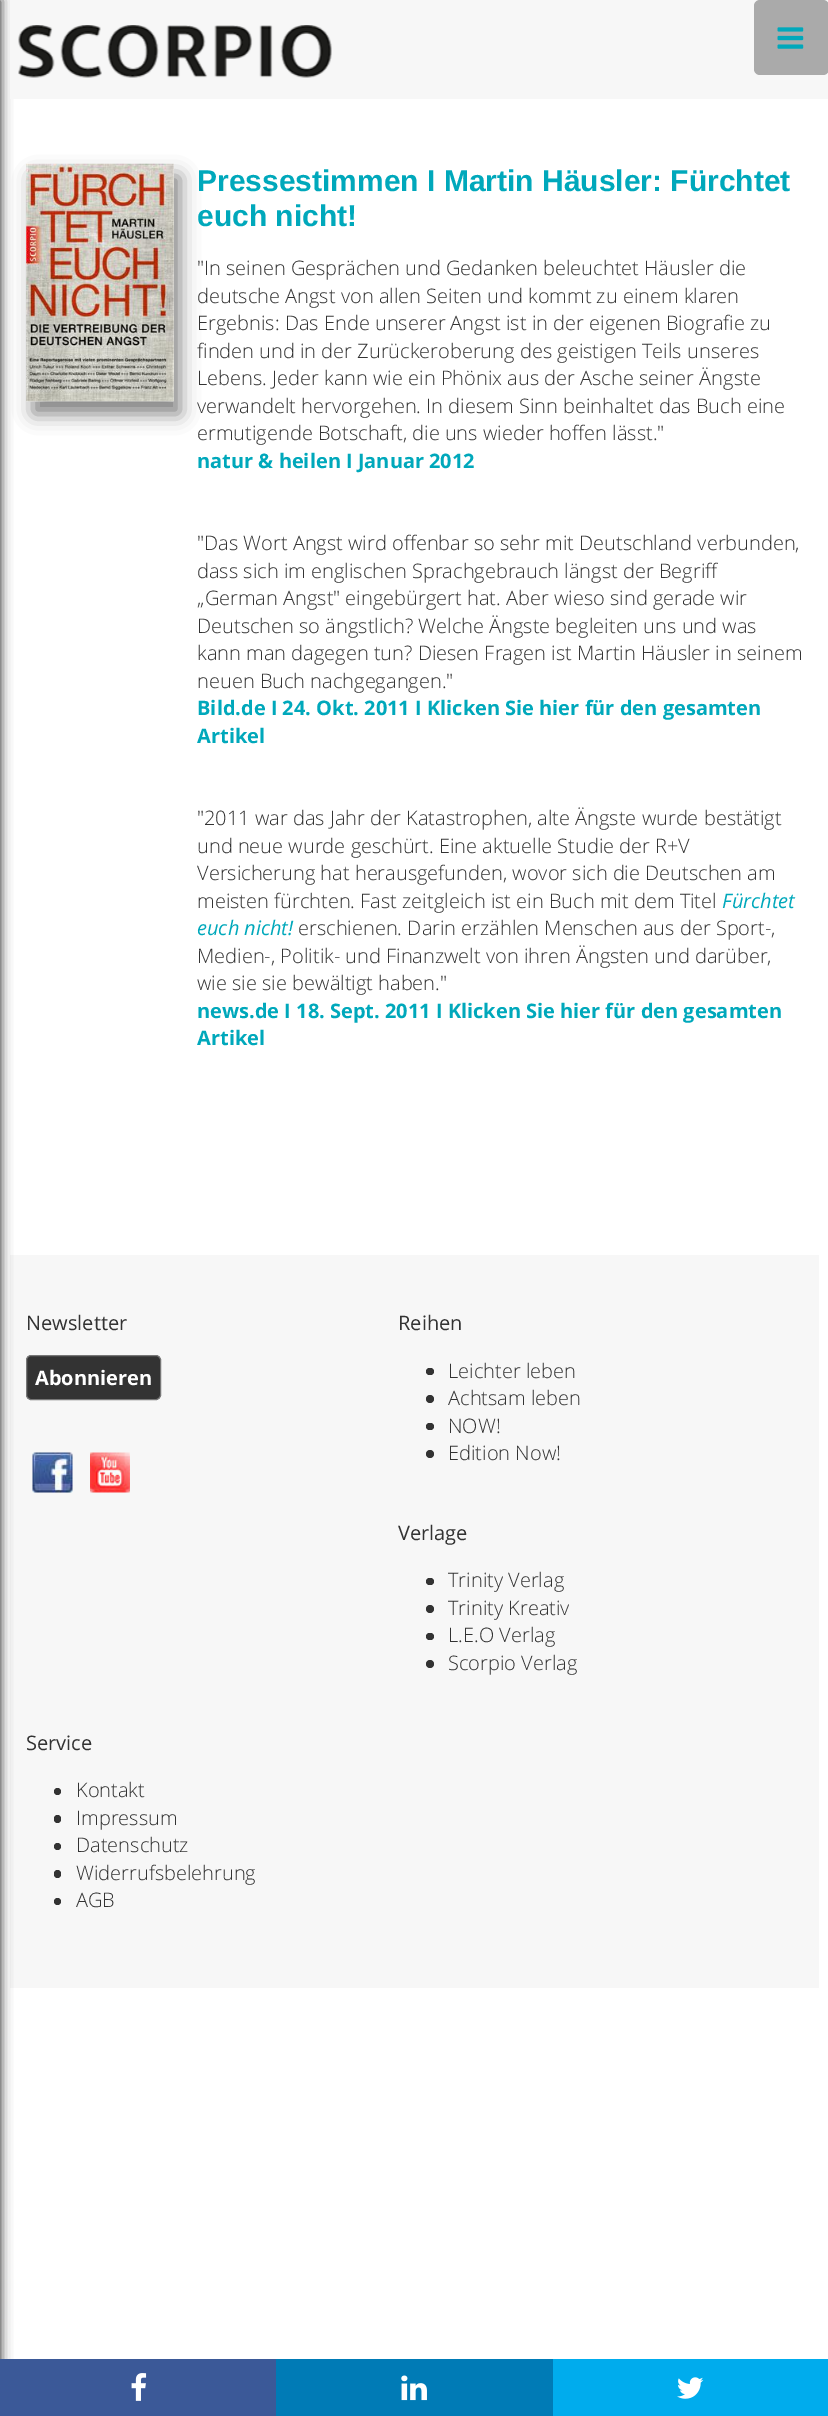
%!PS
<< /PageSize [828 2416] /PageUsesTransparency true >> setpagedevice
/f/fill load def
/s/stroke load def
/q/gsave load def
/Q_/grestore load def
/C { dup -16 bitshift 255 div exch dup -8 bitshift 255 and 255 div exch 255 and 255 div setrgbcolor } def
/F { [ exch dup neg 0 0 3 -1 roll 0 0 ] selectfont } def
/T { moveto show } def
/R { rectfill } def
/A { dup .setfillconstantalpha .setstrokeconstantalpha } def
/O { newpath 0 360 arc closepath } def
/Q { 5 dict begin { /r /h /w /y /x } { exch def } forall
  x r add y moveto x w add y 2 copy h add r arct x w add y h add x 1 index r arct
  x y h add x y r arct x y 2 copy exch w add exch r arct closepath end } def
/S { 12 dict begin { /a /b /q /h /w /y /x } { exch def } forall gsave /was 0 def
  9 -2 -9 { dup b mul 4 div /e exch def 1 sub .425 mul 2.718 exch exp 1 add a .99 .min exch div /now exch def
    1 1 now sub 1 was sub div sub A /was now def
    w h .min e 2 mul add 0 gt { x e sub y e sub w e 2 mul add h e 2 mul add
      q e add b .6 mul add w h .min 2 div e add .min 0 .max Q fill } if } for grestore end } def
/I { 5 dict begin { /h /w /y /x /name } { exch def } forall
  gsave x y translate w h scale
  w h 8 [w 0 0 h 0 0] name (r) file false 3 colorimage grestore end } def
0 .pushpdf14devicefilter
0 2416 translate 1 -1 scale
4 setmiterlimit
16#FFFFFF C
0 0 828 2416 R
16#F7F7F7 C
10 1255 809 733 R
16#000000 C
-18 0 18 2416 0 6 .9 S
16#F7F7F7 C
10 0 818 99 R
16#AAAAAA C
754 0 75 75 6 Q f
(1.rgb) 777 27 27 22 I
(2.rgb) 18 25 314 53 I
16#808080 C
33 176 147 238 0 9.5 1 S
(3.rgb) 26 163 148 239 I
/LiberationSans-Bold 30 F
16#00A8BB C
(Pressestimmen I Martin Häusler: Fürchtet) 197 191 T
(euch nicht!) 197 226 T
/OpenSans-Light 20 F
16#333333 C
("In seinen Gesprächen und Gedanken beleuchtet Häusler die) 197 275 T
(deutsche Angst von allen Seiten und kommt zu einem klaren) 197 303 T
(Ergebnis: Das Ende unserer Angst ist in der eigenen Biografie zu) 197 330 T
(finden und in der Zurückeroberung des geistigen Teils unseres) 197 358 T
(Lebens. Jeder kann wie ein Phönix aus der Asche seiner Ängste) 197 385 T
(verwandelt hervorgehen. In diesem Sinn beinhaltet das Buch eine) 197 413 T
(ermutigende Botschaft, die uns wieder hoffen lässt.") 197 440 T
/OpenSans-Bold 20 F
16#00A8BB C
(natur & heilen I Januar 2012) 197 468 T
/OpenSans-Light 20 F
16#333333 C
("Das Wort Angst wird offenbar so sehr mit Deutschland verbunden,) 197 550 T
(dass sich im englischen Sprachgebrauch längst der Begriff) 197 578 T
(„German Angst" eingebürgert hat. Aber wieso sind gerade wir) 197 605 T
(Deutschen so ängstlich? Welche Ängste begleiten uns und was) 197 633 T
(kann man dagegen tun? Diesen Fragen ist Martin Häusler in seinem) 197 660 T
(neuen Buch nachgegangen.") 197 688 T
/OpenSans-Bold 20 F
16#00A8BB C
(Bild.de I 24. Okt. 2011 I Klicken Sie hier für den gesamten) 197 715 T
(Artikel) 197 743 T
/OpenSans-Light 20 F
16#333333 C
("2011 war das Jahr der Katastrophen, alte Ängste wurde bestätigt) 197 825 T
(und neue wurde geschürt. Eine aktuelle Studie der R+V) 197 853 T
(Versicherung hat herausgefunden, wovor sich die Deutschen am) 197 880 T
(meisten fürchten. Fast zeitgleich ist ein Buch mit dem Titel) 197 908 T
/OpenSans-Italic 20 F
16#00A8BB C
(Fürchtet) 722 908 T
(euch nicht!) 197 935 T
/OpenSans-Light 20 F
16#333333 C
(erschienen. Darin erzählen Menschen aus der Sport-,) 298 935 T
(Medien-, Politik- und Finanzwelt von ihren Ängsten und darüber,) 197 963 T
(wie sie sie bewältigt haben.") 197 990 T
/OpenSans-Bold 20 F
16#00A8BB C
(news.de I 18. Sept. 2011 I Klicken Sie hier für den gesamten) 197 1018 T
(Artikel) 197 1045 T
/OpenSans-Regular 20 F
16#333333 C
(Newsletter) 26 1330 T
26.5 1355.5 134 44 4.5 Q q f Q_
16#777777 C
s
/OpenSans-Bold 20 F
16#FFFFFF C
(Abonnieren) 35 1385 T
(4.rgb) 32 1452 41 41 I
(5.rgb) 90 1452 40 41 I
/OpenSans-Regular 20 F
16#333333 C
(Reihen) 398 1330 T
426 1368 8 7 3.5 Q f
/OpenSans-Light 20 F
(Leichter leben) 448 1378 T
430 1399 4 O f
(Achtsam leben) 448 1405 T
426 1423 8 7 3.5 Q f
(NOW!) 448 1433 T
430 1454 4 O f
(Edition Now!) 448 1460 T
/OpenSans-Regular 20 F
(Verlage) 398 1540 T
426 1578 8 7 3.5 Q f
/OpenSans-Light 20 F
(Trinity Verlag) 448 1587 T
430 1609 4 O f
(Trinity Kreativ) 448 1615 T
426 1633 8 7 3.5 Q f
(L.E.O Verlag) 448 1642 T
430 1664 4 O f
(Scorpio Verlag) 448 1670 T
/OpenSans-Regular 20 F
(Service) 26 1750 T
57.5 1791.5 3.5 O f
/OpenSans-Light 20 F
(Kontakt) 76 1797 T
54 1815 7 8 3.5 Q f
(Impressum) 76 1825 T
57.5 1846.5 3.5 O f
(Datenschutz) 76 1852 T
54 1870 7 8 3.5 Q f
(Widerrufsbelehrung) 76 1880 T
57.5 1901.5 3.5 O f
(AGB) 76 1907 T
16#3B5998 C
0 2359 276 57 R
(6.rgb) 131 2373 16 28 I
16#007BB6 C
276 2359 277 57 R
(7.rgb) 401 2375 26 26 I
16#00ACED C
553 2359 275 57 R
(8.rgb) 677 2377 27 22 I
.poppdf14devicefilter showpage
